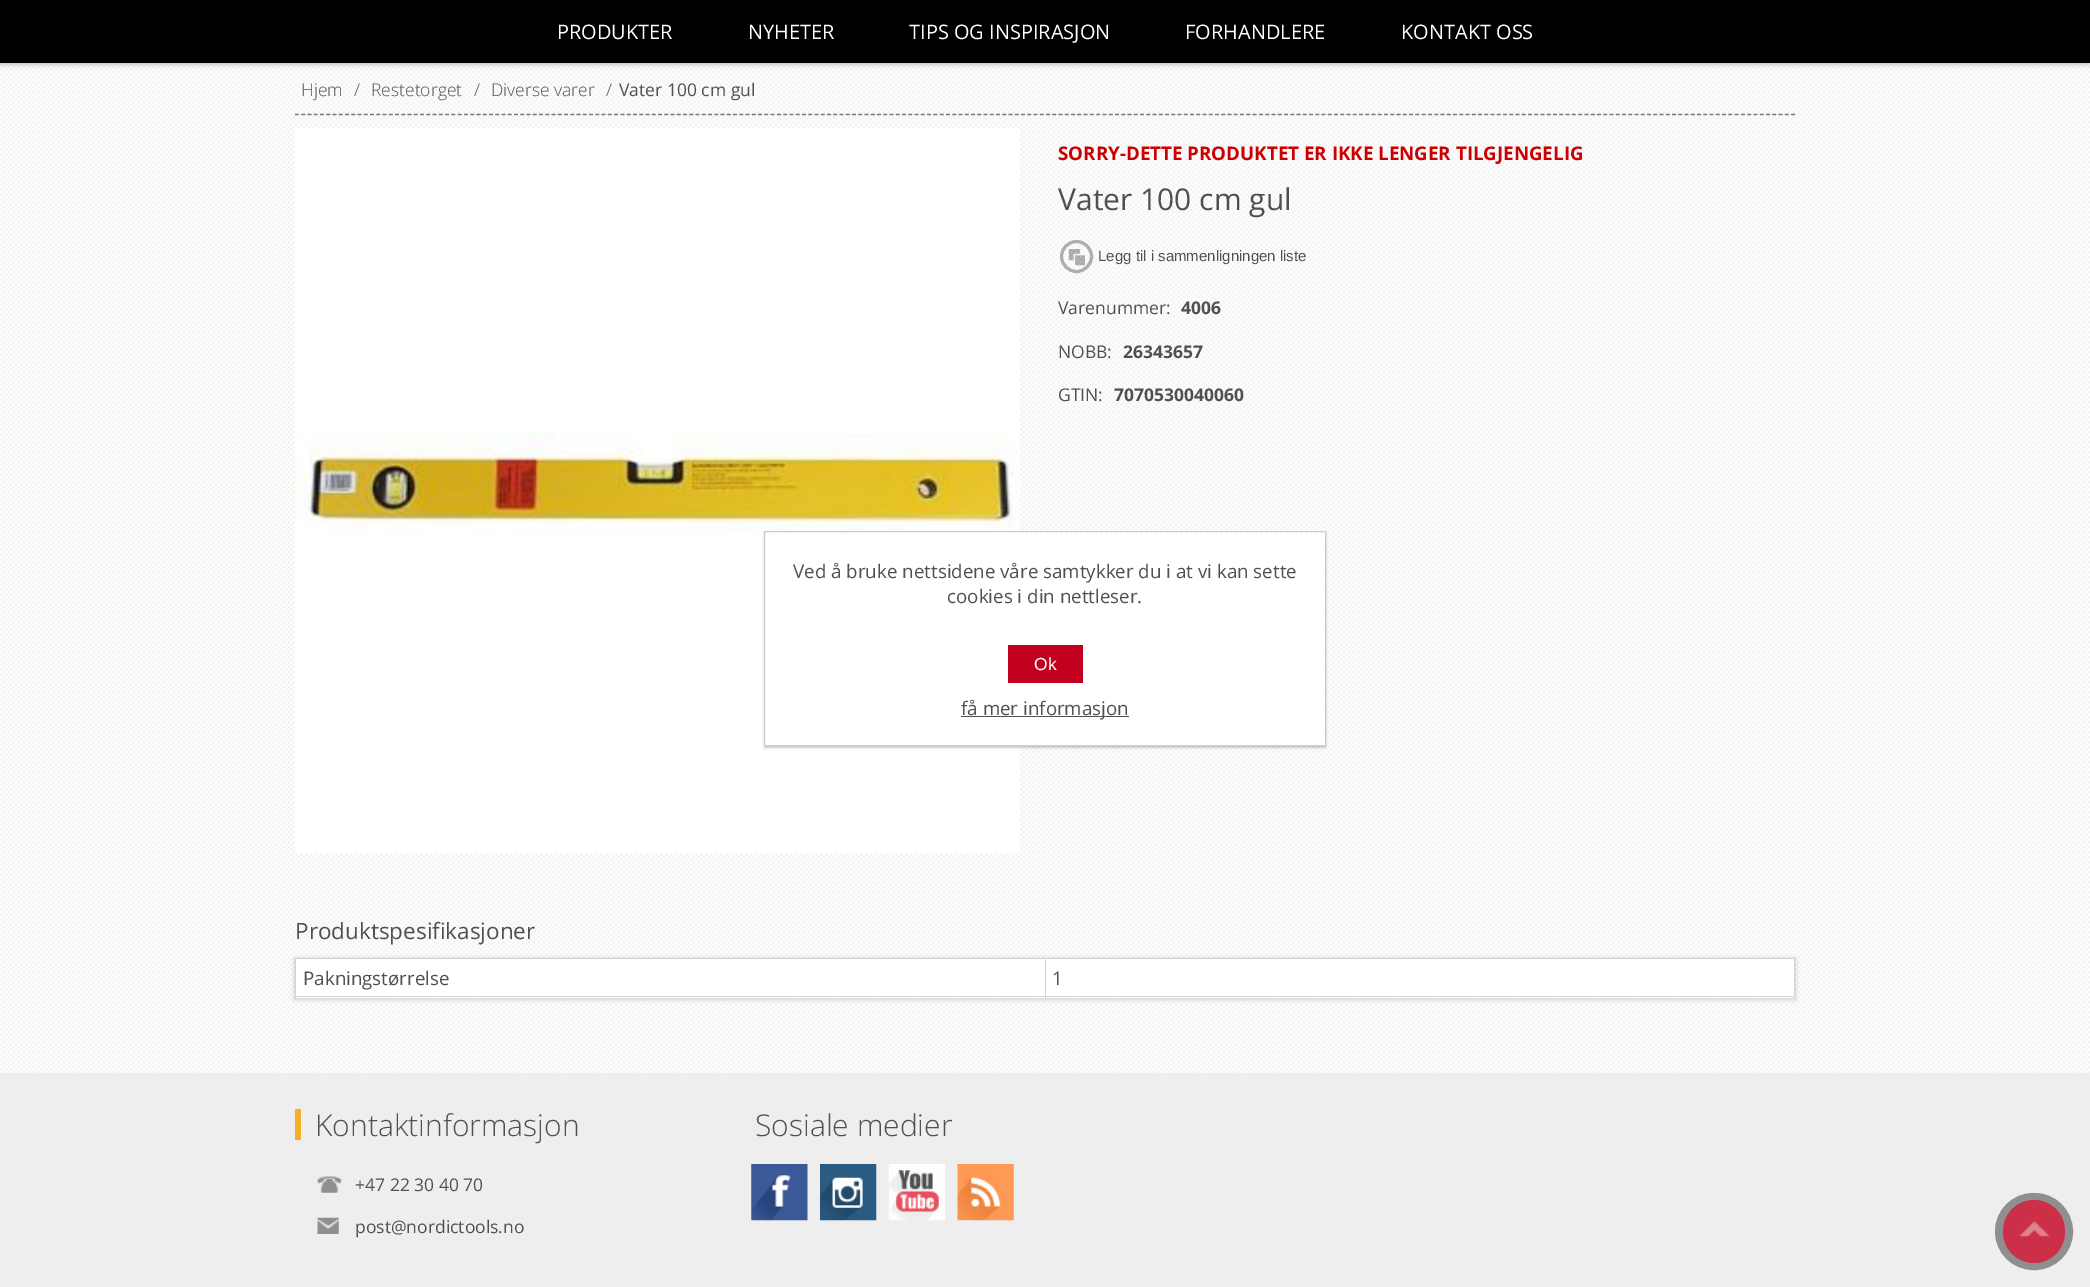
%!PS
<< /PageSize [2090 1287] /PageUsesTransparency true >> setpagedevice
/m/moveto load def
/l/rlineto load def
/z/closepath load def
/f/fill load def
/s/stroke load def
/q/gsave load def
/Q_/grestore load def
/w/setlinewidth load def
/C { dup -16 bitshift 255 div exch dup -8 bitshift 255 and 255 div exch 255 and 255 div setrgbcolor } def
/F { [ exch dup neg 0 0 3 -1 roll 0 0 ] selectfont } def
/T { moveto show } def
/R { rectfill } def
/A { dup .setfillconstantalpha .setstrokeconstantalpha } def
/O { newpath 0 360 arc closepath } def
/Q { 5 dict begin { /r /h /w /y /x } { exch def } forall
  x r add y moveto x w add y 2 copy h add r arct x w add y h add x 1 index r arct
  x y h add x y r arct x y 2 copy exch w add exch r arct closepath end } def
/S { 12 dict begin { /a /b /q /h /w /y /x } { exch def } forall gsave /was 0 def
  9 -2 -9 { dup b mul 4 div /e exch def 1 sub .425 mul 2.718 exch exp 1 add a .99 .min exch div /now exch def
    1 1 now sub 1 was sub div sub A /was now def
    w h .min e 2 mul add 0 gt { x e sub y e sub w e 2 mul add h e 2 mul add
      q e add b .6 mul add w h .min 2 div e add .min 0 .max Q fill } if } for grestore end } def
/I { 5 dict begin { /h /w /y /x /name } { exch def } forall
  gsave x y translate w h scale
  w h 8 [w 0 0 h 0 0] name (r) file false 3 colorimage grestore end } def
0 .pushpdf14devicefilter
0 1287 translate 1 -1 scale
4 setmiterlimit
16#FFFFFF C
0 0 2090 1287 R
(1.rgb) 0 63 2090 1010 I
16#000000 C
0 1 2090 63 0 3 .3 S
0 0 2090 63 R
/OpenSans-Regular 20 F
16#FFFFFF C
(PRODUKTER) 557 39 T
(NYHETER) 748 39 T
(TIPS OG INSPIRASJON) 909 39 T
(FORHANDLERE) 1185 39 T
(KONTAKT OSS) 1401 39 T
16#797979 C
1.2 w
[3.75 2.51] 0 setdash
295 114.5 m 1500 0 l s
/OpenSans-Light 17.5 F
16#505050 C
(Hjem) 301 96 T
(/) 354 96 T
(Restetorget) 371 96 T
(/) 474 96 T
(Diverse varer) 491 96 T
(/) 606 96 T
/OpenSans-Regular 17.5 F
(Vater 100 cm gul) 619 96 T
16#FFFFFF C
295 128 725 725 R
(2.rgb) 295 432 725 102 I
/OpenSans-Bold 18.75 F
16#CC0000 C
(SORRY-DETTE PRODUKTET ER IKKE LENGER TILGJENGELIG) 1058 160 T
/OpenSans-Regular 30 F
16#505050 C
(Vater 100 cm gul) 1058 210 T
(3.rgb) 1068 249 17 17 I
0.3 A
16#000000 C
3 w
[] 0 setdash
1076.5 256.5 15 O s
/LiberationSans-Regular 15 F
1 A
16#505050 C
(Legg til i sammenligningen liste) 1098 261 T
/OpenSans-Regular 17.5 F
(Varenummer:) 1058 314 T
/OpenSans-Bold 17.5 F
(4006) 1181 314 T
/OpenSans-Regular 17.5 F
(NOBB:) 1058 358 T
/OpenSans-Bold 17.5 F
(26343657) 1123 358 T
/OpenSans-Regular 17.5 F
(GTIN:) 1058 401 T
/OpenSans-Bold 17.5 F
(7070530040060) 1114 401 T
/OpenSans-Regular 22.5 F
(Produktspesifikasjoner) 295 939 T
16#000000 C
294 958 1502 42 0 2 .15 S
16#FFFFFF C
296 959 749 39 R
16#D3D3D3 C
1045 958 750 1 R
16#FFFFFF C
1046 959 748 39 R
16#D3D3D3 C
1794 958 1 40 R
1045 996 750 1 R
1045 958 1 40 R
295 958 751 1 R
295 996 751 1 R
295 958 1 40 R
/OpenSans-Regular 18.75 F
16#505050 C
(Pakningstørrelse) 303 985 T
(1) 1052 985 T
16#000000 C
764 533 562 215 0 1 .2 S
16#FFFFFF C
764.5 531.5 m 561 0 l 0 214 l -561 0 l z q f Q_
16#CCCCCC C
1 w
s
16#505050 C
(Ved å bruke nettsidene våre samtykker du i at vi kan sette) 793 578 T
(cookies i din nettleser.) 947 603 T
16#C2001F C
1008 645 75 38 R
/LiberationSans-Regular 17.5 F
16#FFFFFF C
(Ok) 1034 670 T
16#505050 C
961 716 168 1 R
/OpenSans-Regular 18.75 F
(få mer informasjon) 961 715 T
16#EEEEEE C
0 1073 2090 214 R
16#F6B026 C
295 1109 6 31 R
/OpenSans-Light 30 F
16#505050 C
(Kontaktinformasjon) 315 1136 T
(4.rgb) 317 1176 25 17 I
/OpenSans-Regular 17.5 F
(+47 22 30 40 70) 355 1191 T
(5.rgb) 317 1217 22 17 I
(post@nordictools.no) 355 1233 T
/OpenSans-Light 30 F
(Sosiale medier) 755 1136 T
(6.rgb) 751 1164 57 57 I
(7.rgb) 820 1164 57 57 I
(8.rgb) 888 1164 57 57 I
(9.rgb) 957 1164 57 57 I
16#8F8F8F C
8 w
1999 1197 70 69 34.5 Q s
16#CB3048 C
2003 1200 62 63 31 Q f
(10.rgb) 2019 1221 31 16 I
.poppdf14devicefilter showpage
